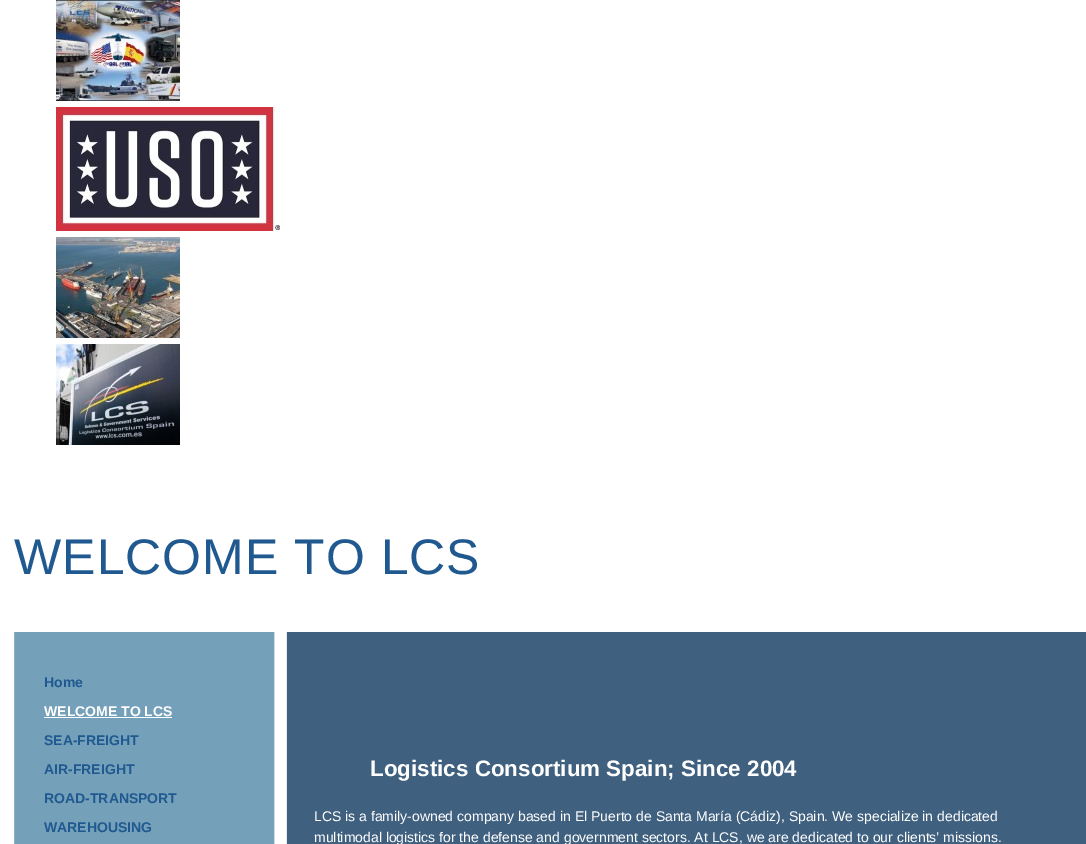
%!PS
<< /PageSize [1086 844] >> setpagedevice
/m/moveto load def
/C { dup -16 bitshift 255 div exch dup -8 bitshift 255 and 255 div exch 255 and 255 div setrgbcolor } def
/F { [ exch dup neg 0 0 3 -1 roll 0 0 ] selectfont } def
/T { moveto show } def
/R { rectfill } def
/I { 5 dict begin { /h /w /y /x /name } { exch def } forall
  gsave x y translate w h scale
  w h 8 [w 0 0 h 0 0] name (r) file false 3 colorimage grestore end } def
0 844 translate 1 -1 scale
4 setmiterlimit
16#FFFFFF C
0 0 1086 844 R
(1.rgb) 56 0 124 101 I
(2.rgb) 56 107 224 124 I
(3.rgb) 56 237 124 101 I
(4.rgb) 56 344 124 101 I
/LiberationSans-Regular 50 F
16#1F598F C
14 574 m 1 0 (WELCOME TO LCS) ashow
(5.rgb) 14 632 1072 212 I
/LiberationSans-Bold 14 F
(Home) 44 687 T
16#FFFFFF C
(WELCOME TO LCS) 44 716 T
44 717 128 1 R
16#1F598F C
(SEA-FREIGHT) 44 745 T
(AIR-FREIGHT) 44 774 T
(ROAD-TRANSPORT) 44 803 T
(WAREHOUSING) 44 832 T
/LiberationSans-Bold 22.4 F
16#FFFFFF C
(Logistics Consortium Spain; Since 2004) 370 776 T
/LiberationSans-Regular 14 F
(LCS is a family-owned company based in El Puerto de Santa María \(Cádiz\), Spain. We specialize in dedicated) 314 821 T
(multimodal logistics for the defense and government sectors. At LCS, we are dedicated to our clients’ missions.) 314 842 T
showpage
